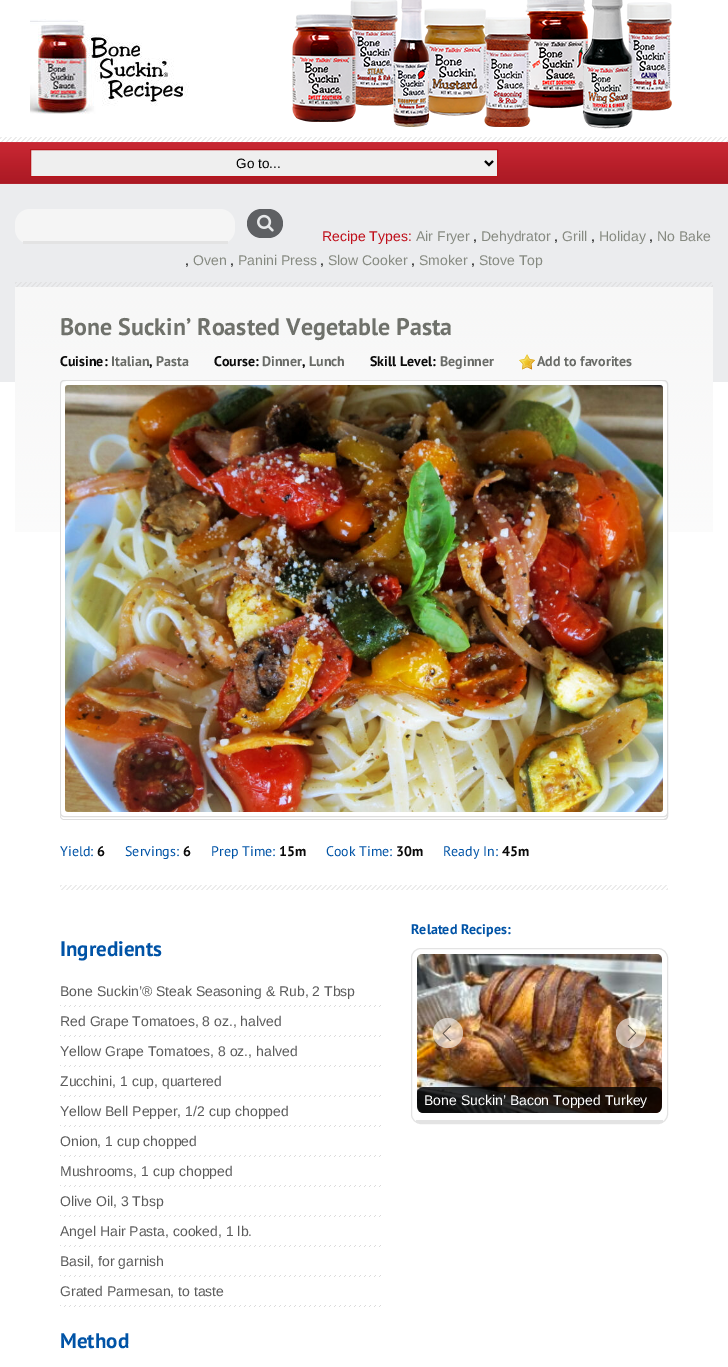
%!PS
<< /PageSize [728 1367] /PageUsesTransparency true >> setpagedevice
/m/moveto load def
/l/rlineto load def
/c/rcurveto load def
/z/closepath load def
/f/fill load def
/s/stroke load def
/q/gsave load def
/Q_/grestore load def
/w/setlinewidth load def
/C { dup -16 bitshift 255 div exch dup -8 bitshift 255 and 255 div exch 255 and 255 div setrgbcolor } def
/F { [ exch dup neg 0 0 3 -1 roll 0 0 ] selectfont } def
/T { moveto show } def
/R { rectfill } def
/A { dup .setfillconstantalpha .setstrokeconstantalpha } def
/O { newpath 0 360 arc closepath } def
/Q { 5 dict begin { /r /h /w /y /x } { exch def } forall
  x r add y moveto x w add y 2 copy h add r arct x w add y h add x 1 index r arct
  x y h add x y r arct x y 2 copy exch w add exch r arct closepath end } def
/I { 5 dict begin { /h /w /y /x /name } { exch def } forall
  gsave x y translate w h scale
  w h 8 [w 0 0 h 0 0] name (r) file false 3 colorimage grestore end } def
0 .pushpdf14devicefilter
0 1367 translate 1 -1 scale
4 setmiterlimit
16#FFFFFF C
0 0 728 1367 R
(1.rgb) 30 19 159 95 I
(2.rgb) 292 0 380 129 I
(3.rgb) 0 137 728 5 I
(4.rgb) 0 142 728 42 I
16#EFEFEF C
30.5 149.5 m 467 0 l 0 27 l -467 0 l z q f Q_
16#B71319 C
s
16#000000 C
2 w
485 161 m 4 4 l 4 -4 l s
/LiberationSans-Regular 13.5 F
(Go to...) 236 168 T
16#EBECEE C
0 184 728 198 R
(5.rgb) 15 282 698 5 I
16#F5F5F5 C
15 209 220 35 15 Q f
16#E3E3E3 C
23 241 205 3 R
16#5E6063 C
247 209 36 29 14.5 Q f
(6.rgb) 257 214 17 18 I
/LiberationSans-Regular 14 F
16#BF0F1A C
(Recipe Types:) 322 241 T
16#858980 C
(Air Fryer) 416 241 T
16#000000 C
(,) 473 241 T
16#858980 C
(Dehydrator) 481 241 T
16#000000 C
(,) 554 241 T
16#858980 C
(Grill) 562 241 T
16#000000 C
(,) 591 241 T
16#858980 C
(Holiday) 599 241 T
16#000000 C
(,) 649 241 T
16#858980 C
(No Bake) 657 241 T
16#000000 C
(,) 185 265 T
16#858980 C
(Oven) 193 265 T
16#000000 C
(,) 230 265 T
16#858980 C
(Panini Press) 238 265 T
16#000000 C
(,) 320 265 T
16#858980 C
(Slow Cooker) 328 265 T
16#000000 C
(,) 411 265 T
16#858980 C
(Smoker) 419 265 T
16#000000 C
(,) 471 265 T
16#858980 C
(Stove Top) 479 265 T
(7.rgb) 15 287 698 245 I
/PTSans-Bold 24 F
16#6F716B C
(Bone Suckin’ Roasted Vegetable Pasta) 60 335 T
/PTSans-Bold 14 F
16#0A0A0A C
(Cuisine:) 60 366 T
16#696B67 C
(Italian) 111 366 T
16#0A0A0A C
(,) 149 366 T
16#696B67 C
(Pasta) 156 366 T
16#0A0A0A C
(Course:) 214 366 T
16#696B67 C
(Dinner) 262 366 T
16#0A0A0A C
(,) 302 366 T
16#696B67 C
(Lunch) 309 366 T
16#0A0A0A C
(Skill Level:) 370 366 T
16#696B67 C
(Beginner) 440 366 T
(8.rgb) 519 354 16 16 I
(Add to favorites) 537 366 T
16#DDDDDD C
1 w
60.5 380.5 607 436 3.5 Q s
64 809 m 600 0 l 5 0 6 10 1 11 c -601 0 l -2 0 -4 -2 -4 -4 c 0 -3 0 -7 4 -7 c z 64 809 m 601 0 l 3 1 3 7 1 9 c -2 1 l -601 0 l -4 -1 -3 -10 1 -10 c z eofill
16#FFFFFF C
61 381 606 435 7 Q f
(9.rgb) 65 385 598 427 I
/PTSans-Regular 14 F
16#0053A6 C
(Yield:) 60 856 T
/PTSans-Bold 14 F
16#0A0A0A C
(6) 97 856 T
/PTSans-Regular 14 F
16#0053A6 C
(Servings:) 125 856 T
/PTSans-Bold 14 F
16#0A0A0A C
(6) 183 856 T
/PTSans-Regular 14 F
16#0053A6 C
(Prep Time:) 211 856 T
/PTSans-Bold 14 F
16#0A0A0A C
(15m) 279 856 T
/PTSans-Regular 14 F
16#0053A6 C
(Cook Time:) 326 856 T
/PTSans-Bold 14 F
16#0A0A0A C
(30m) 396 856 T
/PTSans-Regular 14 F
16#0053A6 C
(Ready In:) 443 856 T
/PTSans-Bold 14 F
16#0A0A0A C
(45m) 502 856 T
(10.rgb) 60 885 608 5 I
/PTSans-Bold 21 F
16#0053A6 C
(Ingredients) 60 956 T
(11.rgb) 60 1005 321 2 I
/LiberationSans-Regular 14 F
16#5B5B5B C
(Bone Suckin’® Steak Seasoning & Rub, 2 Tbsp) 60 996 T
(11.rgb) 60 1035 321 2 I
(Red Grape Tomatoes, 8 oz., halved) 60 1026 T
(11.rgb) 60 1065 321 2 I
(Yellow Grape Tomatoes, 8 oz., halved) 60 1056 T
(11.rgb) 60 1095 321 2 I
(Zucchini, 1 cup, quartered) 60 1086 T
(11.rgb) 60 1125 321 2 I
(Yellow Bell Pepper, 1/2 cup chopped) 60 1116 T
(11.rgb) 60 1155 321 2 I
(Onion, 1 cup chopped) 60 1146 T
(11.rgb) 60 1185 321 2 I
(Mushrooms, 1 cup chopped) 60 1176 T
(11.rgb) 60 1215 321 2 I
(Olive Oil, 3 Tbsp) 60 1206 T
(11.rgb) 60 1245 321 2 I
(Angel Hair Pasta, cooked, 1 lb.) 60 1236 T
(11.rgb) 60 1275 321 2 I
(Basil, for garnish) 60 1266 T
(11.rgb) 60 1305 321 2 I
(Grated Parmesan, to taste) 60 1296 T
/PTSans-Bold 21 F
16#0053A6 C
(Method) 60 1348 T
/PTSans-Bold 14 F
(Related Recipes:) 411 934 T
16#E3E3E3 C
411.5 948.5 256 175 9.5 Q s
(14.rgb) 417 954 245 159 I
0.6 A
16#FFFFFF C
448 1048 m -8.5 0 -15 -6.5 -15 -15 c 0 -8 6.5 -15 15 -15 c 8 0 15 7 15 15 c 0 8.5 -7 15 -15 15 c z f
1 A
(12.rgb) 442 1025 9 16 I
0.6 A
631 1033 15 O f
1 A
(13.rgb) 627 1025 10 16 I
16#E3E3E3 C
416 1120 247 3 R
(15.rgb) 417 1087 245 26 I
/LiberationSans-Regular 14 F
16#FFFFFF C
(Bone Suckin’ Bacon Topped Turkey) 424 1105 T
.poppdf14devicefilter showpage
